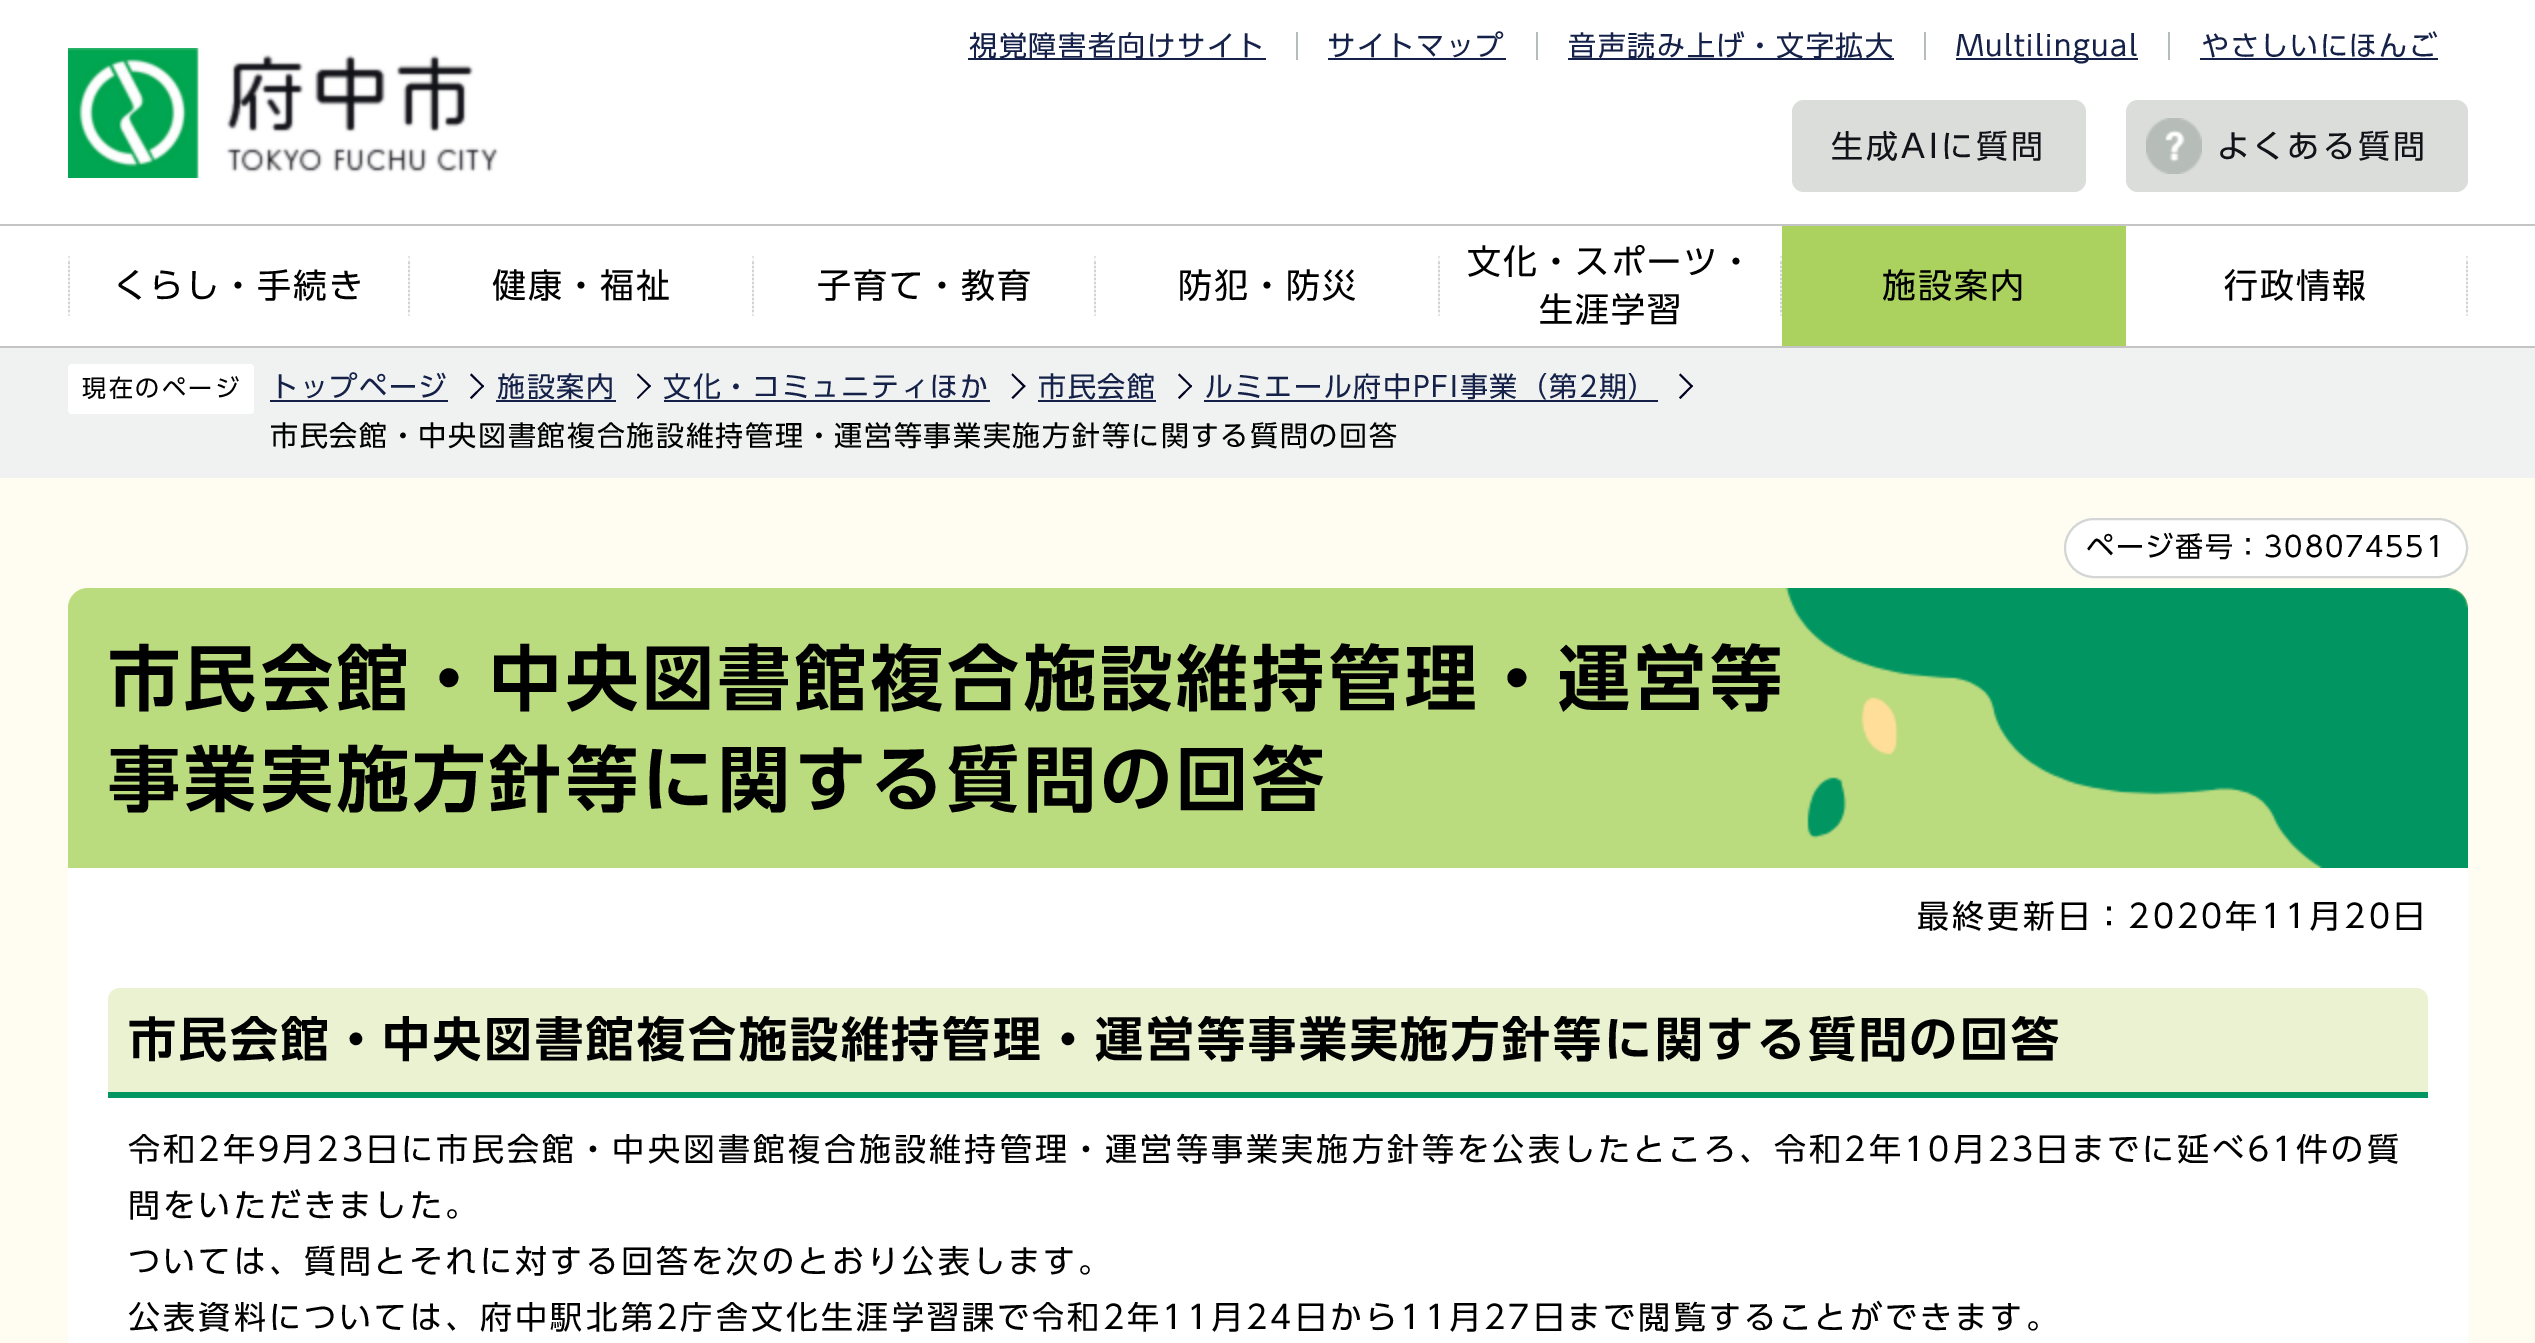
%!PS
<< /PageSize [2535 1343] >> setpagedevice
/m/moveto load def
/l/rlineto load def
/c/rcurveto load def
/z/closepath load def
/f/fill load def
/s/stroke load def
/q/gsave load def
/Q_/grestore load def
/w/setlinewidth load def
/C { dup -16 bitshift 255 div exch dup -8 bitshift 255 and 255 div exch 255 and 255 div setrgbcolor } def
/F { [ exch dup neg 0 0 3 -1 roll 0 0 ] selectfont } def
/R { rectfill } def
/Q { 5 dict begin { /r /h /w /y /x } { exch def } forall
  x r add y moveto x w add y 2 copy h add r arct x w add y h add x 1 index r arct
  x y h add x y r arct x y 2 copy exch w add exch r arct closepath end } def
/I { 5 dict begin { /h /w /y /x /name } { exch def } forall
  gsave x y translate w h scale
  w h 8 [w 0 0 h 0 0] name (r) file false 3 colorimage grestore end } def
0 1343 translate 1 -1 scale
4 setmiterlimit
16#FFFFFF C
0 0 2535 1343 R
(1.rgb) 68 48 431 130 I
16#B6BCB8 C
1296 32 2 28 R
16#152148 C
968 58 298 2 R
/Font-Regular 28 F
969 56 m 1.7 0 (視覚障害者向けサイト) ashow
16#B6BCB8 C
1536 32 2 28 R
16#152148 C
1327 56 m 1.7 0 (サイトマップ) ashow
1328 58 178 2 R
16#B6BCB8 C
1924 32 2 28 R
16#152148 C
1568 58 326 2 R
1568 56 m 1.7 0 (音声読み上げ・文字拡大) ashow
16#B6BCB8 C
2168 32 2 28 R
16#152148 C
1956 58 182 2 R
1956 56 m 1.7 0 (Multilingual) ashow
2201 56 m 1.7 0 (やさしいにほんご) ashow
2200 58 238 2 R
16#DBDDDB C
1792 100 294 92 12 Q f
/Font-Regular 32 F
16#121219 C
1831 158 m 3.2 0 (生成AIに質問) ashow
16#DBDDDB C
2126 100 342 92 12 Q f
(2.rgb) 2146 118 56 56 I
16#121219 C
2217 158 m 3.2 0 (よくある質問) ashow
16#C4C4C4 C
0 224 2535 2 R
0 346 2535 2 R
(3.rgb) 68 256 2 60 I
(3.rgb) 408 256 2 60 I
/Font-Regular 34 F
16#000000 C
113 298 m 2 0 (くらし・手続き) ashow
(3.rgb) 752 256 2 60 I
492 298 m 2 0 (健康・福祉) ashow
(3.rgb) 1094 256 2 60 I
817 298 m 2 0 (子育て・教育) ashow
(3.rgb) 1438 256 2 60 I
1178 298 m 2 0 (防犯・防災) ashow
(3.rgb) 1780 256 2 60 I
1467 274 m 2 0 (文化・スポーツ・) ashow
1539 322 m 2 0 (生涯学習) ashow
16#ABD25F C
1782 226 344 120 R
16#000000 C
1882 298 m 2 0 (施設案内) ashow
(3.rgb) 2466 256 2 60 I
2224 298 m 2 0 (行政情報) ashow
16#FFFCF2 C
0 478 2535 865 R
16#F0F2F1 C
0 348 2535 130 R
16#FFFFFF C
68 364 186 50 4 Q f
/Font-Regular 24 F
16#000000 C
82 397 m 2.5 0 (現在のページ) ashow
/Font-Regular 28 F
16#152148 C
270 397 m 1.7 0 (トップページ) ashow
270 400 178 2 R
16#000222 C
471.5 373.5 m 12.5 12.5 l -1 1.5 l -13 -12.5 l z f
483 385 m 1 1 l -12.5 13 l -1.5 -1.5 l z f
16#152148 C
497 397 m 1.7 0 (施設案内) ashow
496 400 120 2 R
16#000222 C
638 373.5 m 13 12.5 l -1.5 1.5 l -12.5 -12.5 l z f
649.5 385 m 1.5 1 l -13 13 l -1 -1.5 l z f
16#152148 C
663 397 m 1.7 0 (文化・コミュニティほか) ashow
664 400 326 2 R
16#000222 C
1012.5 373.5 m 13 12.5 l -1.5 1.5 l -12.5 -12.5 l z f
1024 385 m 1.5 1 l -12.5 13 l -1.5 -1.5 l z f
16#152148 C
1038 397 m 1.7 0 (市民会館) ashow
1038 400 118 2 R
16#000222 C
1179.5 373.5 m 12.5 12.5 l -1 1.5 l -13 -12.5 l z f
1191 385 m 1 1 l -12.5 13 l -1.5 -1.5 l z f
16#152148 C
1205 397 m 1.7 0 (ルミエール府中PFI事業（第2期）) ashow
1204 400 454 2 R
16#000222 C
1680.5 373.5 m 12.5 12.5 l -1.5 1.5 l -12.5 -12.5 l z f
1691.5 385 m 1.5 1 l -12.5 13 l -1.5 -1.5 l z f
16#000000 C
270 446 m 1.7 0 (市民会館・中央図書館複合施設維持管理・運営等事業実施方針等に関する質問の回答) ashow
16#FFFFFF C
2065 519 402 58 29 Q q f Q_
16#D3D6D4 C
2 w
s
16#000000 C
2086 557 m 1.7 0 (ページ番号：308074551) ashow
16#FFFFFF C
68 588 2400 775 20 Q f
16#BBDB7F C
88 588 m 2360 0 l 11 0 20 9 20 20 c 0 260 l -2400 0 l 0 -260 l 0 -11 9 -20 20 -20 c z f
(4.rgb) 1785 588 683 280 I
/Font-SemiBold 72 F
16#000000 C
108 705 m 4.3 0 (市民会館・中央図書館複合施設維持管理・運営等) ashow
108 806 m 4.3 0 (事業実施方針等に関する質問の回答) ashow
/Font-Regular 32 F
1917 928 m 3.2 0 (最終更新日：2020年11月20日) ashow
16#EBF2D1 C
120 988 m 2296 0 l 6.5 0 12 5.5 12 12 c 0 98 l -2320 0 l 0 -98 l 0 -6.5 5.5 -12 12 -12 c z f
16#019661 C
108 1092 2320 6 R
/Font-SemiBold 48 F
16#000000 C
128 1057 m 2.9 0 (市民会館・中央図書館複合施設維持管理・運営等事業実施方針等に関する質問の回答) ashow
/Font-Regular 32 F
128 1161 m 3.2 0 (令和2年9月23日に市民会館・中央図書館複合施設維持管理・運営等事業実施方針等を公表したところ、令和2年10月23日までに延べ61件の質) ashow
128 1217 m 3.2 0 (問をいただきました。) ashow
128 1273 m 3.2 0 (ついては、質問とそれに対する回答を次のとおり公表します。) ashow
128 1329 m 3.2 0 (公表資料については、府中駅北第2庁舎文化生涯学習課で令和2年11月24日から11月27日まで閲覧することができます。) ashow
showpage
